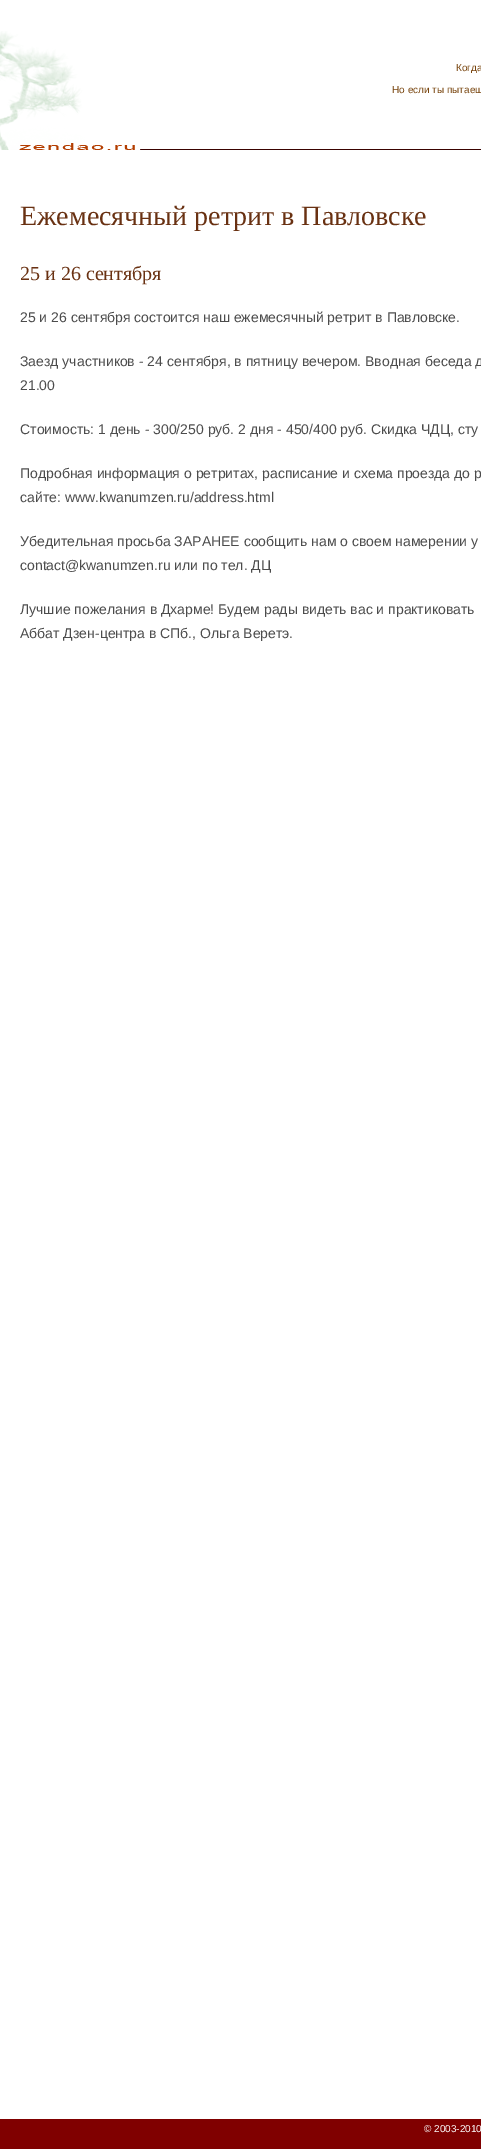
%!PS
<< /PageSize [481 2149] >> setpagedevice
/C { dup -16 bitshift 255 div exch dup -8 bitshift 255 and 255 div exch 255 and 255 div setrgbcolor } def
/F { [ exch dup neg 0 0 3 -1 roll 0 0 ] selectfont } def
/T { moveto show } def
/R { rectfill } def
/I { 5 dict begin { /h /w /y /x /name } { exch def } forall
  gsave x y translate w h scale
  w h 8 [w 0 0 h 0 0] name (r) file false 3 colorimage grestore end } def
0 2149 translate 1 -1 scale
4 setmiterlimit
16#FFFFFF C
0 0 481 2149 R
(1.rgb) 0 31 481 119 I
/LiberationSans-Regular 10 F
16#77430C C
(Когда) 456 71 T
(Но если ты пытаеш) 392 93 T
/LiberationSerif-Regular 28 F
16#693112 C
(Ежемесячный ретрит в Павловске) 20 225 T
/LiberationSerif-Regular 20 F
(25 и 26 сентября) 20 280 T
/LiberationSans-Regular 14 F
16#4C4C4C C
(25 и 26 сентября состоится наш ежемесячный ретрит в Павловске.) 20 322 T
(Заезд участников - 24 сентября, в пятницу вечером. Вводная беседа д) 20 366 T
(21.00) 20 390 T
(Стоимость: 1 день - 300/250 руб. 2 дня - 450/400 руб. Скидка ЧДЦ, сту) 20 434 T
(Подробная информация о ретритах, расписание и схема проезда до р) 20 478 T
(сайте: www.kwanumzen.ru/address.html) 20 502 T
(Убедительная просьба ЗАРАНЕЕ сообщить нам о своем намерении у) 20 546 T
(contact@kwanumzen.ru или по тел. ДЦ) 20 570 T
(Лучшие пожелания в Дхарме! Будем рады видеть вас и практиковать) 20 614 T
(Аббат Дзен-центра в СПб., Ольга Веретэ.) 20 638 T
16#800000 C
0 2119 481 30 R
/LiberationSans-Regular 10 F
16#FFFFFF C
(© 2003-2010) 424 2132 T
showpage
